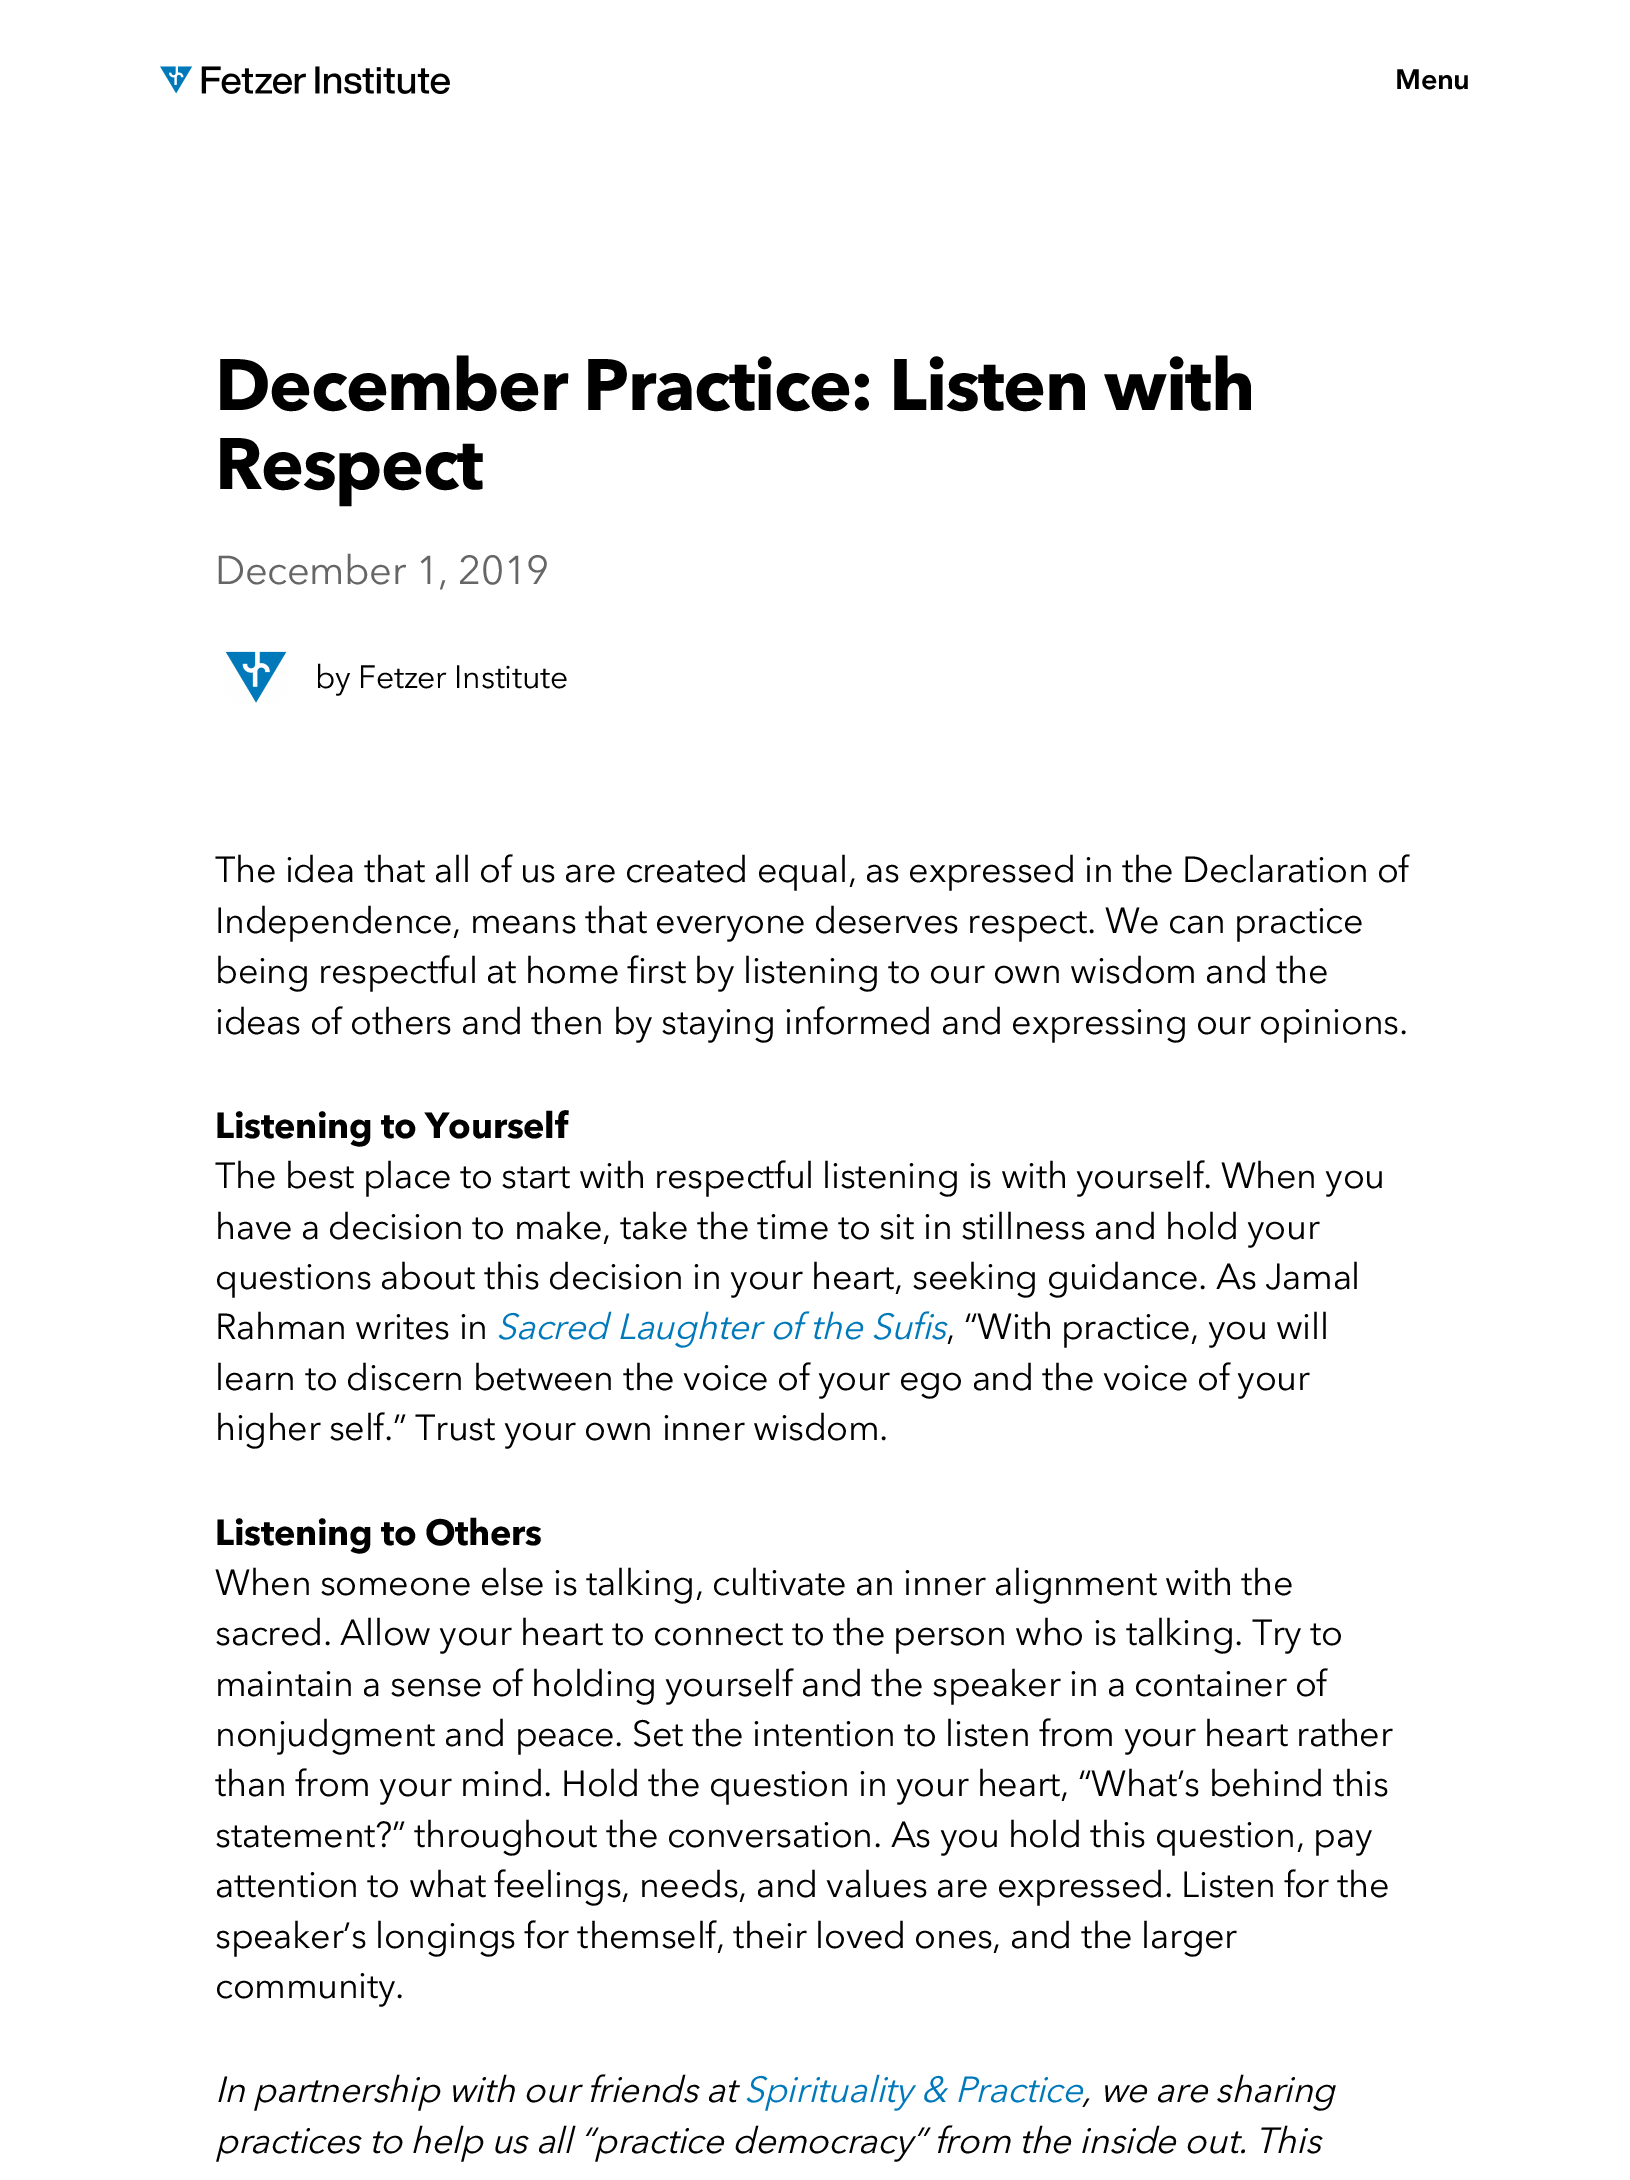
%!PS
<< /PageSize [1630 2180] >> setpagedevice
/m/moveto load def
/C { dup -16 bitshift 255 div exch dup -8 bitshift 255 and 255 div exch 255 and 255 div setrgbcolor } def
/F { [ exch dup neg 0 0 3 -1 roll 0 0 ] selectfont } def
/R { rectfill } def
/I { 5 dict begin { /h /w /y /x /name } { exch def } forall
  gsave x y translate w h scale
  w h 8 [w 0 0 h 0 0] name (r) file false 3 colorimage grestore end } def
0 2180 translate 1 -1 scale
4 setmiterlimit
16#FFFFFF C
0 0 1630 2180 R
(1.rgb) 160 66 290 28 I
/AvenirNext-SemiBold 28 F
16#000000 C
1395 89 m -.5 0 (Menu) ashow
/AvenirNext-Bold 72 F
215 410 m -1.45 0 (December Practice: Listen with) ashow
215 489 m -1.45 0 (Respect) ashow
/AvenirNext-Regular 40 F
16#666666 C
215 584 m -.4 0 (December 1, 2019) ashow
(2.rgb) 225 651 62 52 I
/AvenirNext-Regular 32 F
16#000000 C
315 688 m -.3 0 (by Fetzer Institute) ashow
/AvenirNext-Regular 36 F
215 882 m -.35 0 (The idea that all of us are created equal, as expressed in the Declaration of) ashow
215 933 m -.35 0 (Independence, means that everyone deserves respect. We can practice) ashow
215 983 m -.35 0 (being respectful at home first by listening to our own wisdom and the) ashow
215 1034 m -.35 0 (ideas of others and then by staying informed and expressing our opinions.) ashow
/AvenirNext-Bold 36 F
215 1138 m -.35 0 (Listening to Yourself) ashow
/AvenirNext-Regular 36 F
215 1188 m -.35 0 (The best place to start with respectful listening is with yourself. When you) ashow
215 1239 m -.35 0 (have a decision to make, take the time to sit in stillness and hold your) ashow
215 1289 m -.35 0 (questions about this decision in your heart, seeking guidance. As Jamal) ashow
215 1339 m -.35 0 (Rahman writes in) ashow
/AvenirNext-Italic 36 F
16#0079BB C
496 1339 m -.35 0 (Sacred Laughter of the Sufis) ashow
/AvenirNext-Regular 36 F
16#000000 C
946 1339 m -.35 0 (, “With practice, you will) ashow
215 1390 m -.35 0 (learn to discern between the voice of your ego and the voice of your) ashow
215 1440 m -.35 0 (higher self.” Trust your own inner wisdom.) ashow
/AvenirNext-Bold 36 F
215 1545 m -.35 0 (Listening to Others) ashow
/AvenirNext-Regular 36 F
215 1595 m -.35 0 (When someone else is talking, cultivate an inner alignment with the) ashow
215 1645 m -.35 0 (sacred. Allow your heart to connect to the person who is talking. Try to) ashow
215 1696 m -.35 0 (maintain a sense of holding yourself and the speaker in a container of) ashow
215 1746 m -.35 0 (nonjudgment and peace. Set the intention to listen from your heart rather) ashow
215 1796 m -.35 0 (than from your mind. Hold the question in your heart, “What’s behind this) ashow
215 1847 m -.35 0 (statement?” throughout the conversation. As you hold this question, pay) ashow
215 1897 m -.35 0 (attention to what feelings, needs, and values are expressed. Listen for the) ashow
215 1948 m -.35 0 (speaker’s longings for themself, their loved ones, and the larger) ashow
215 1998 m -.35 0 (community.) ashow
/AvenirNext-Italic 36 F
215 2102 m -.35 0 (In partnership with our friends at) ashow
16#0079BB C
744 2102 m -.35 0 (Spirituality & Practice) ashow
16#000000 C
1082 2102 m -.35 0 (, we are sharing) ashow
215 2153 m -.35 0 (practices to help us all “practice democracy” from the inside out. This) ashow
showpage
